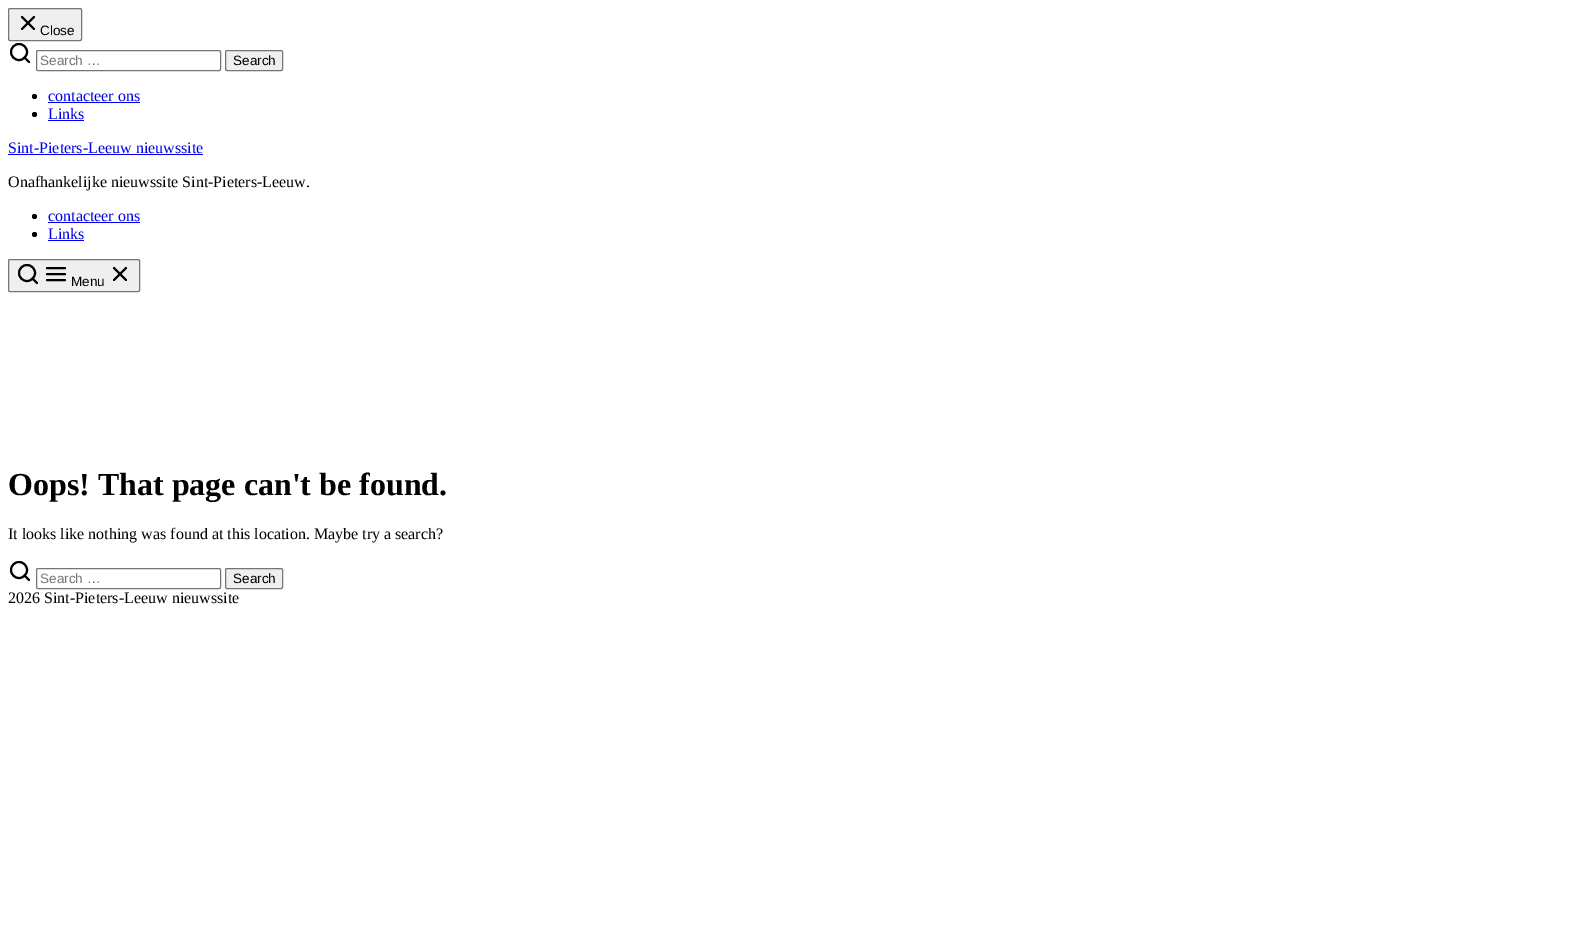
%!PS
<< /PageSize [1586 932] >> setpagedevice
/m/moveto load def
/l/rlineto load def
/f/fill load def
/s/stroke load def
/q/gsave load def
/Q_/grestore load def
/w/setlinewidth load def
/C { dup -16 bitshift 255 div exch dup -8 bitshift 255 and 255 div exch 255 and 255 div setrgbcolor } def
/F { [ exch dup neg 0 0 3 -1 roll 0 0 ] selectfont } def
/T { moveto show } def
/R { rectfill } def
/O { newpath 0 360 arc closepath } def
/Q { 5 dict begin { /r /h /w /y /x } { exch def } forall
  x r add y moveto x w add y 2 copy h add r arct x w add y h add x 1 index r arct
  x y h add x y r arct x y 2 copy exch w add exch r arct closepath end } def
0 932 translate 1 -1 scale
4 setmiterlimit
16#FFFFFF C
0 0 1586 932 R
16#EFEFEF C
8.5 8.5 73 32 1.5 Q q f Q_
16#767676 C
s
16#000000 C
2 w
1 setlinecap
1 setlinejoin
34 17 m -12 12 l 22 17 m 12 12 l s
/LiberationSans-Regular 13.5 F
(Close) 40 35 T
0 setlinecap
0 setlinejoin
19 52 8 O s
16#767676 C
1 w
36.5 50.5 184 20 1.5 Q s
16#757575 C
(Search …) 40 65 T
16#000000 C
2 w
1 setlinecap
1 setlinejoin
29 62 m -4.5 -4.5 l s
16#EFEFEF C
225.5 50.5 57 20 1.5 Q q f Q_
16#767676 C
1 w
0 setlinecap
0 setlinejoin
s
16#000000 C
(Search) 233 65 T
34.5 96.5 2.5 O f
/LiberationSerif-Regular 16 F
16#0000EE C
(contacteer ons) 48 101 T
48 102 92 1 R
16#000000 C
34.5 114.5 2.5 O f
16#0000EE C
(Links) 48 119 T
48 120 36 1 R
(Sint-Pieters-Leeuw nieuwssite) 8 153 T
8 154 195 1 R
16#000000 C
(Onafhankelijke nieuwssite Sint-Pieters-Leeuw.) 8 187 T
34.5 216.5 2.5 O f
16#0000EE C
(contacteer ons) 48 221 T
48 222 92 1 R
16#000000 C
34.5 234.5 2.5 O f
16#0000EE C
(Links) 48 239 T
48 240 36 1 R
16#EFEFEF C
8.5 259.5 131 32 1.5 Q q f Q_
16#767676 C
s
16#000000 C
2 w
27 273 8 O s
1 setlinecap
1 setlinejoin
37 283 m -4.5 -4.5 l 47 274 m 18 0 l 47 268 m 18 0 l 47 280 m 18 0 l s
/LiberationSans-Regular 13.5 F
(Menu) 71 286 T
126 268 m -12 12 l 114 268 m 12 12 l s
/LiberationSerif-Bold 32 F
(Oops! That page can't be found.) 8 495 T
/LiberationSerif-Regular 16 F
(It looks like nothing was found at this location. Maybe try a search?) 8 539 T
0 setlinecap
0 setlinejoin
19 570 8 O s
16#767676 C
1 w
36.5 568.5 184 20 1.5 Q s
/LiberationSans-Regular 13.5 F
16#757575 C
(Search …) 40 583 T
16#000000 C
2 w
1 setlinecap
1 setlinejoin
29 580 m -4.5 -4.5 l s
16#EFEFEF C
225.5 568.5 57 20 1.5 Q q f Q_
16#767676 C
1 w
0 setlinecap
0 setlinejoin
s
16#000000 C
(Search) 233 583 T
/LiberationSerif-Regular 16 F
(2026 Sint-Pieters-Leeuw nieuwssite) 8 603 T
showpage
